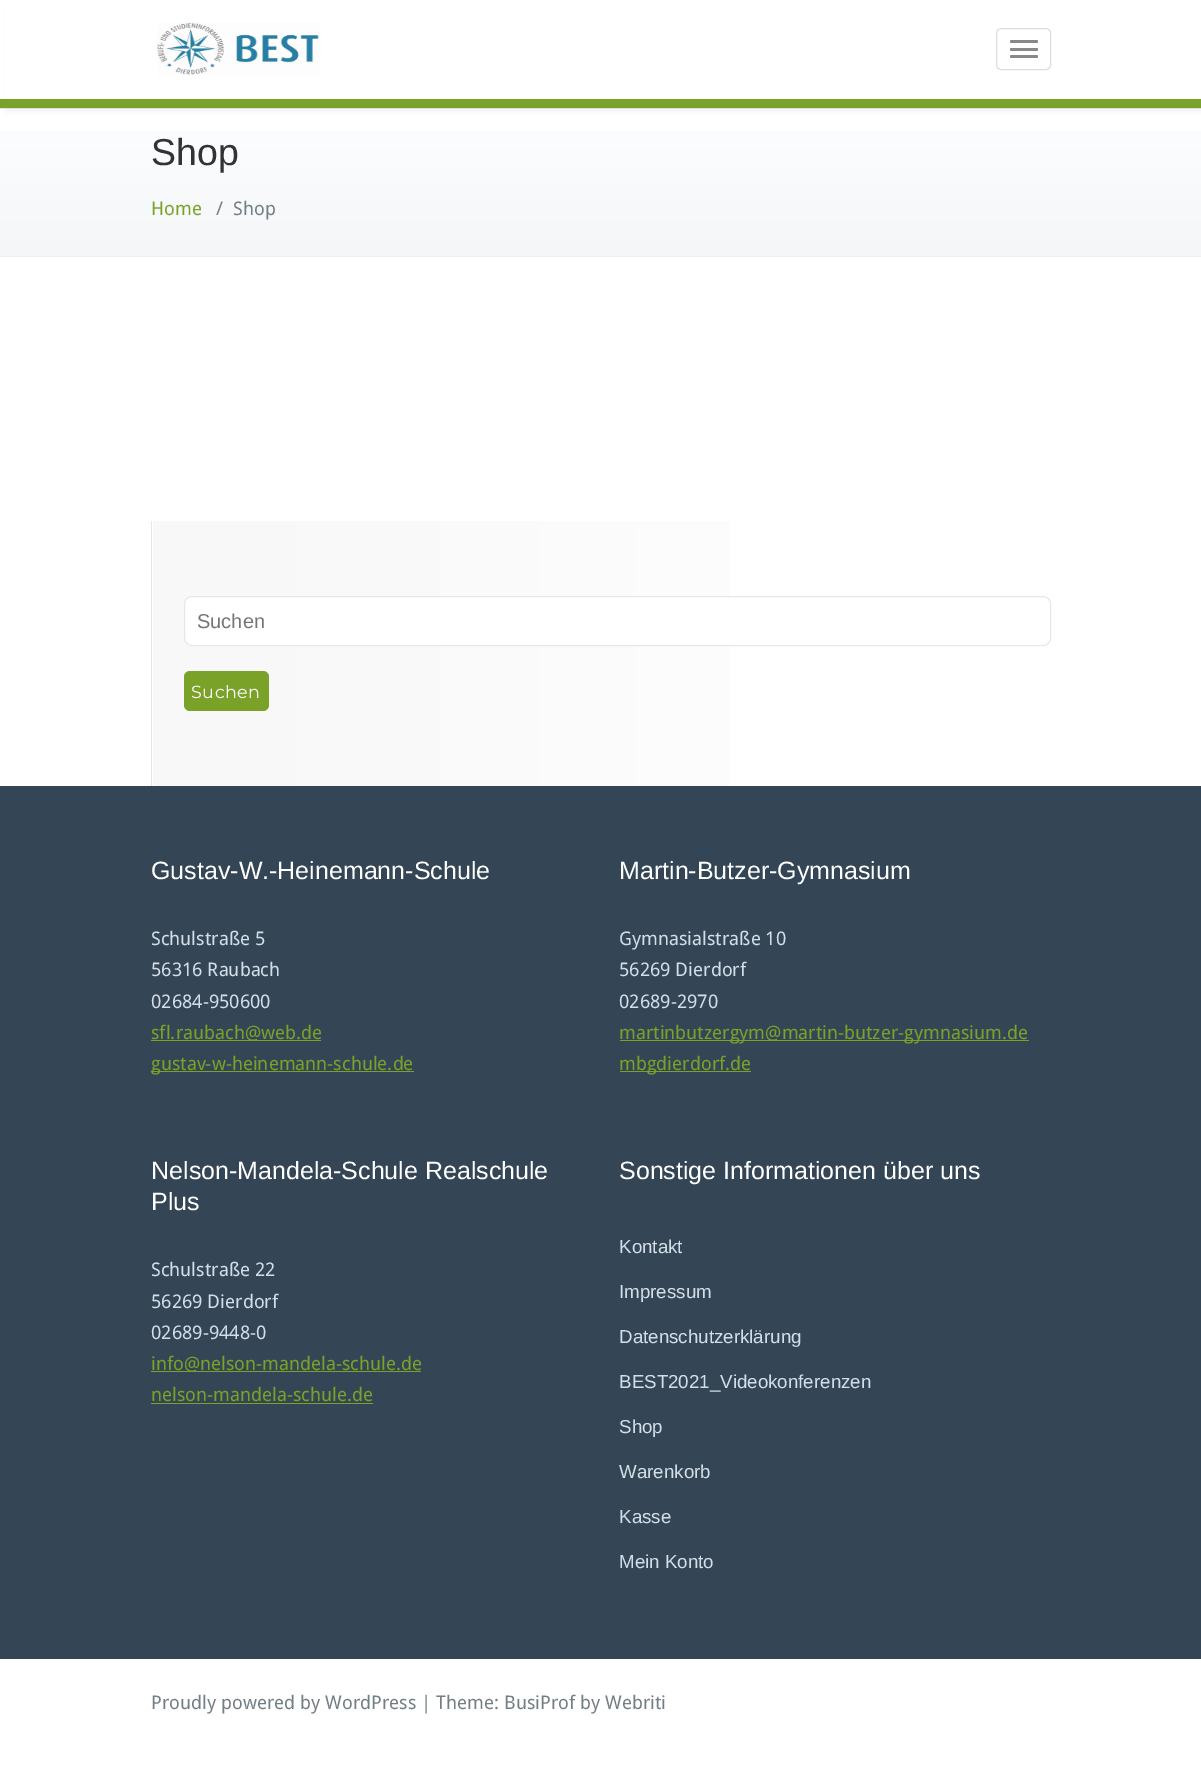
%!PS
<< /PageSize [1201 1783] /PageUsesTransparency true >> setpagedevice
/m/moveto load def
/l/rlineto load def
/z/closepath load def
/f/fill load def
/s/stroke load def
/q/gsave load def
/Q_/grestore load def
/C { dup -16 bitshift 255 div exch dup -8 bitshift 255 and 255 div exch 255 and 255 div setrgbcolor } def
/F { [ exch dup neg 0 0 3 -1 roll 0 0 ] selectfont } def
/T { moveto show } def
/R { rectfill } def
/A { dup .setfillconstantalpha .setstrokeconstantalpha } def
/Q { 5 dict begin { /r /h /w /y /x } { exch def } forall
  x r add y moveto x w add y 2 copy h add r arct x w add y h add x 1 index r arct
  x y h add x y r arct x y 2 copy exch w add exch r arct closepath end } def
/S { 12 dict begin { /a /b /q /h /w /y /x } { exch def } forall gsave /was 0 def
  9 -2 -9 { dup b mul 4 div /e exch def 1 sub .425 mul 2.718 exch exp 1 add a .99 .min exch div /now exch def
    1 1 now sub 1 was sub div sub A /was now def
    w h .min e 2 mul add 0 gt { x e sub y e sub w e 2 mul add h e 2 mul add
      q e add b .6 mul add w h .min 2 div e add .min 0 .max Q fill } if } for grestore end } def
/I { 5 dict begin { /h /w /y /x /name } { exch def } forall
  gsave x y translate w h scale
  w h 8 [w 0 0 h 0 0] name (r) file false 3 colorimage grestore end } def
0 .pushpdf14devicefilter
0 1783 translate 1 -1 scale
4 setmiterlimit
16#FFFFFF C
0 0 1201 1783 R
16#E4E8EA C
0 108 1201 1 R
16#000000 C
5 5 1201 108 0 2 .04 S
16#FFFFFF C
4 4 1197 95 R
16#7AA228 C
0 99 1201 9 R
(1.rgb) 157 22 163 53 I
16#DDDDDD C
996.5 28.5 54 41 4.5 Q s
16#888888 C
1010 40 28 3 1.5 Q f
1010 48 28 3 1.5 Q f
1010 55 28 3 1.5 Q f
q 0 131 m 1201 0 l 0 125 l -1201 0 l z clip newpath
<< /ShadingType 2 /ColorSpace /DeviceRGB /Coords [601 109 601 256] /Extend [true true] /Function << /FunctionType 2 /Domain [0 1] /C0 [.996 .996 1] /C1 [.957 .965 .969] /N 1 >> >> shfill Q_
16#EEEEEE C
0 256 1201 1 R
/LiberationSans-Regular 37.5 F
16#333333 C
(Shop) 151 165 T
/DroidSans-Regular 18.75 F
16#7AA228 C
(Home) 151 215 T
16#737F85 C
(/) 216 215 T
(Shop) 233 215 T
q 153 521 m 577 0 l 0 265 l -577 0 l z clip newpath
<< /ShadingType 2 /ColorSpace /DeviceRGB /Coords [153 654 1051 654] /Extend [true true] /Function << /FunctionType 2 /Domain [0 1] /C0 [.973 .973 .973] /C1 [1 1 1] /N 1 >> >> shfill Q_
16#E4E8EA C
151 521 1 265 R
16#FFFFFF C
184.5 596.5 866 49 7.5 Q q f Q_
16#E7E7E7 C
s
/LiberationSans-Regular 20 F
16#757575 C
(Suchen) 197 628 T
16#7AA228 C
184 671 85 40 6 Q f
/Montserrat-Regular 17.5 F
16#FFFFFF C
191 698 m .5 0 (Suchen) ashow
16#344656 C
0 786 1201 873 R
/LiberationSans-Regular 25 F
16#FFFFFF C
(Gustav-W.-Heinemann-Schule) 151 879 T
/DroidSans-Regular 18.75 F
16#D3DEE8 C
(Schulstraße 5) 151 945 T
(56316 Raubach) 151 976 T
(02684-950600) 151 1008 T
16#7AA228 C
151 1040 170 1 R
(sfl.raubach@web.de) 151 1039 T
151 1071 263 1 R
(gustav-w-heinemann-schule.de) 151 1070 T
/LiberationSans-Regular 25 F
16#FFFFFF C
(Martin-Butzer-Gymnasium) 619 879 T
/DroidSans-Regular 18.75 F
16#D3DEE8 C
(Gymnasialstraße 10) 619 945 T
(56269 Dierdorf) 619 976 T
(02689-2970) 619 1008 T
16#7AA228 C
620 1040 409 1 R
(martinbutzergym@martin-butzer-gymnasium.de) 619 1039 T
620 1071 131 1 R
(mbgdierdorf.de) 619 1070 T
/LiberationSans-Regular 25 F
16#FFFFFF C
(Nelson-Mandela-Schule Realschule) 151 1179 T
(Plus) 151 1210 T
/DroidSans-Regular 18.75 F
16#D3DEE8 C
(Schulstraße 22) 151 1276 T
(56269 Dierdorf) 151 1308 T
(02689-9448-0) 151 1339 T
16#7AA228 C
151 1371 270 1 R
(info@nelson-mandela-schule.de) 151 1370 T
(nelson-mandela-schule.de) 151 1401 T
151 1403 222 1 R
/LiberationSans-Regular 25 F
16#FFFFFF C
(Sonstige Informationen über uns) 619 1179 T
/LiberationSans-Regular 18.75 F
16#D3DEE8 C
(Kontakt) 619 1253 T
(Impressum) 619 1298 T
(Datenschutzerklärung) 619 1343 T
(BEST2021_Videokonferenzen) 619 1388 T
(Shop) 619 1433 T
(Warenkorb) 619 1478 T
(Kasse) 619 1523 T
(Mein Konto) 619 1568 T
/DroidSans-Regular 18.75 F
16#737F85 C
(Proudly powered by WordPress | Theme: BusiProf by Webriti) 151 1709 T
.poppdf14devicefilter showpage
